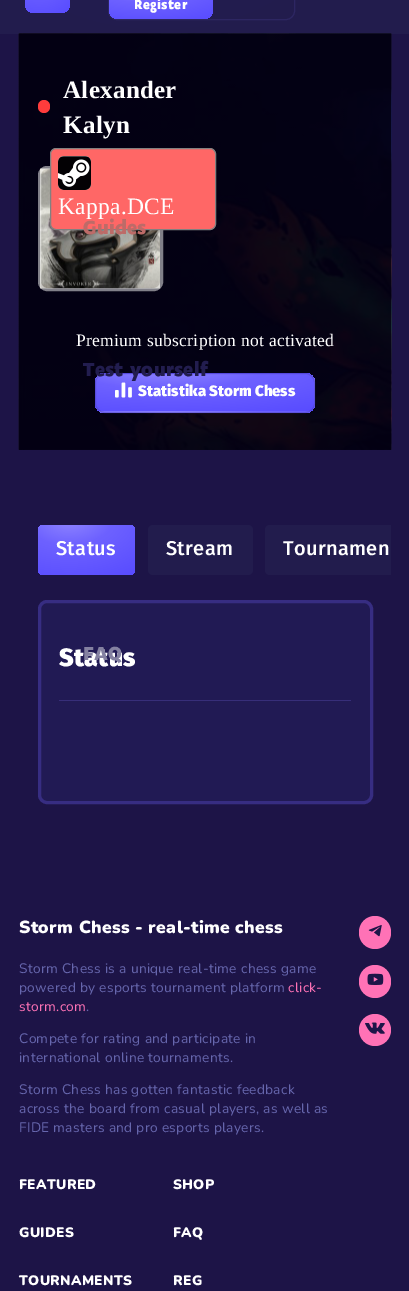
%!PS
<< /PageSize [409 1291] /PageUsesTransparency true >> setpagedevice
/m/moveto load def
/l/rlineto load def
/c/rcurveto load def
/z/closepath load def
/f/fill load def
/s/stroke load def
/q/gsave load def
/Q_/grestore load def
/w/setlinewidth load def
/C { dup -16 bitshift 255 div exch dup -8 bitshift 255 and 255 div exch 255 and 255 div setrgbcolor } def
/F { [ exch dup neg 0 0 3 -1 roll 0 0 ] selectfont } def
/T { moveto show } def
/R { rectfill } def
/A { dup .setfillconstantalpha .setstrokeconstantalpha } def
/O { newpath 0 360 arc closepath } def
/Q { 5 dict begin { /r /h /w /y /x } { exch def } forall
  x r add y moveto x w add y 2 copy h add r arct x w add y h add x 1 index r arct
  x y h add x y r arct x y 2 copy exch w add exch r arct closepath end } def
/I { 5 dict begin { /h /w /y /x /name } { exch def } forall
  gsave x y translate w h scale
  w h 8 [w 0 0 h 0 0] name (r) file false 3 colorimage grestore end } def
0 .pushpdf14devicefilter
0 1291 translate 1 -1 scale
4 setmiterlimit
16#1D1447 C
0 0 409 1291 R
q 0 0 m 409 0 l 0 34 l -409 0 l z clip newpath 160 -54 translate 1343 743 scale
<< /ShadingType 3 /ColorSpace /DeviceRGB /Coords [0 0 0 0 0 1] /Extend [true true] /Function << /FunctionType 2 /Domain [0 1] /C0 [.137 .114 .31] /C1 [.118 .098 .282] /N 1 >> >> shfill Q_
16#2D2662 C
108.5 -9.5 186 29 8.5 Q s
q 109 -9 104 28 9 Q clip newpath 142 -13 translate 138 45 scale
<< /ShadingType 3 /ColorSpace /DeviceRGB /Coords [0 0 0 0 0 1] /Extend [true true] /Function << /FunctionType 3 /Domain [0 1] /Functions [<< /FunctionType 2 /Domain [0 1] /C0 [.569 .525 1] /C1 [.427 .38 1] /N 1 >> << /FunctionType 2 /Domain [0 1] /C0 [.427 .38 1] /C1 [.341 .29 1] /N 1 >> << /FunctionType 2 /Domain [0 1] /C0 [.341 .29 1] /C1 [.341 .29 1] /N 1 >>] /Bounds [.34 .92] /Encode [0 1 0 1 0 1] >> >> shfill Q_
/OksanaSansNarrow-Black 13.75 F
16#FFFFFF C
134 9 m .3 0 (Register) ashow
q 25 -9 45 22 9 Q clip newpath 39 -38 translate 60 70 scale
<< /ShadingType 3 /ColorSpace /DeviceRGB /Coords [0 0 0 0 0 1] /Extend [true true] /Function << /FunctionType 3 /Domain [0 1] /Functions [<< /FunctionType 2 /Domain [0 1] /C0 [.569 .525 1] /C1 [.427 .38 1] /N 1 >> << /FunctionType 2 /Domain [0 1] /C0 [.427 .38 1] /C1 [.341 .29 1] /N 1 >> << /FunctionType 2 /Domain [0 1] /C0 [.341 .29 1] /C1 [.341 .29 1] /N 1 >>] /Bounds [.34 .92] /Encode [0 1 0 1 0 1] >> >> shfill Q_
(1.rgb) 18 33 374 417 I
0.88 A
16#030015 C
19 34 372 416 R
1 A
(3.rgb) 40 168 120 121 I
0.5 A
16#FFFFFF C
3 w
39.5 167.5 122 122 7.5 Q s
1 A
16#FF6766 C
50.5 148.5 165 81 5.5 Q q f Q_
16#828080 C
1 w
s
/OksanaSansNarrow-Black 20 F
16#BD6B68 C
83 234 m .3 0 (Guides) ashow
q
95 373 220 40 10 Q clip newpath
q 96 373 m 218 0 l 0 1 l -218 0 l z clip newpath 166 332 translate 289 58 scale
<< /ShadingType 3 /ColorSpace /DeviceRGB /Coords [0 0 0 0 0 1] /Extend [true true] /Function << /FunctionType 3 /Domain [0 1] /Functions [<< /FunctionType 2 /Domain [0 1] /C0 [.569 .525 1] /C1 [.427 .38 1] /N 1 >> << /FunctionType 2 /Domain [0 1] /C0 [.427 .38 1] /C1 [.341 .29 1] /N 1 >> << /FunctionType 2 /Domain [0 1] /C0 [.341 .29 1] /C1 [.341 .29 1] /N 1 >>] /Bounds [.34 .92] /Encode [0 1 0 1 0 1] >> >> shfill Q_
q 95 374 m 1 0 l 0 37 l -1 0 l z clip newpath -52 369 translate 289 58 scale
<< /ShadingType 3 /ColorSpace /DeviceRGB /Coords [0 0 0 0 0 1] /Extend [true true] /Function << /FunctionType 3 /Domain [0 1] /Functions [<< /FunctionType 2 /Domain [0 1] /C0 [.569 .525 1] /C1 [.427 .38 1] /N 1 >> << /FunctionType 2 /Domain [0 1] /C0 [.427 .38 1] /C1 [.341 .29 1] /N 1 >> << /FunctionType 2 /Domain [0 1] /C0 [.341 .29 1] /C1 [.341 .29 1] /N 1 >>] /Bounds [.34 .92] /Encode [0 1 0 1 0 1] >> >> shfill Q_
q 96 374 m 218 0 l 0 37 l -218 0 l z clip newpath 166 369 translate 289 58 scale
<< /ShadingType 3 /ColorSpace /DeviceRGB /Coords [0 0 0 0 0 1] /Extend [true true] /Function << /FunctionType 3 /Domain [0 1] /Functions [<< /FunctionType 2 /Domain [0 1] /C0 [.569 .525 1] /C1 [.427 .38 1] /N 1 >> << /FunctionType 2 /Domain [0 1] /C0 [.427 .38 1] /C1 [.341 .29 1] /N 1 >> << /FunctionType 2 /Domain [0 1] /C0 [.341 .29 1] /C1 [.341 .29 1] /N 1 >>] /Bounds [.34 .92] /Encode [0 1 0 1 0 1] >> >> shfill Q_
q 314 374 m 1 0 l 0 37 l -1 0 l z clip newpath 383 369 translate 289 58 scale
<< /ShadingType 3 /ColorSpace /DeviceRGB /Coords [0 0 0 0 0 1] /Extend [true true] /Function << /FunctionType 3 /Domain [0 1] /Functions [<< /FunctionType 2 /Domain [0 1] /C0 [.569 .525 1] /C1 [.427 .38 1] /N 1 >> << /FunctionType 2 /Domain [0 1] /C0 [.427 .38 1] /C1 [.341 .29 1] /N 1 >> << /FunctionType 2 /Domain [0 1] /C0 [.341 .29 1] /C1 [.341 .29 1] /N 1 >>] /Bounds [.34 .92] /Encode [0 1 0 1 0 1] >> >> shfill Q_
q 96 411 m 218 0 l 0 2 l -218 0 l z clip newpath 166 407 translate 289 58 scale
<< /ShadingType 3 /ColorSpace /DeviceRGB /Coords [0 0 0 0 0 1] /Extend [true true] /Function << /FunctionType 3 /Domain [0 1] /Functions [<< /FunctionType 2 /Domain [0 1] /C0 [.569 .525 1] /C1 [.427 .38 1] /N 1 >> << /FunctionType 2 /Domain [0 1] /C0 [.427 .38 1] /C1 [.341 .29 1] /N 1 >> << /FunctionType 2 /Domain [0 1] /C0 [.341 .29 1] /C1 [.341 .29 1] /N 1 >>] /Bounds [.34 .92] /Encode [0 1 0 1 0 1] >> >> shfill Q_
Q_
0.3 A
16#453B91 C
95.5 373.5 219 39 9.5 Q s
1 A
16#221D4F C
83 376 m .3 0 (Test yourself) ashow
16#211A54 C
39.5 601.5 332 201 7.5 Q q f Q_
16#372D82 C
3 w
s
/FiraSans-Black 25 F
16#FFFFFF C
59 666 m .3 0 (Status) ashow
/OksanaSansNarrow-Black 20 F
16#8481A1 C
83 660 m .3 0 (FAQ) ashow
/LiberationSerif-Bold 25 F
16#FFFFFF C
63 98 m .3 0 (Alexander) ashow
16#FF3C3C C
38 100 12 13 6 Q f
16#FFFFFF C
63 133 m .3 0 (Kalyn) ashow
58 156 33 34 6 Q f
(2.rgb) 58 156 33 34 I
/LiberationSerif-Regular 23.5 F
58 214 m .3 0 (Kappa.DCE) ashow
/LiberationSerif-Regular 17.5 F
76 346 m .3 0 (Premium subscription not activated) ashow
(4.rgb) 115 382 17 16 I
/FiraSans-Black 15 F
(Statistika Storm Chess) 138 396 T
q 38 525 97 50 5 Q clip newpath 69 519 translate 129 78 scale
<< /ShadingType 3 /ColorSpace /DeviceRGB /Coords [0 0 0 0 0 1] /Extend [true true] /Function << /FunctionType 3 /Domain [0 1] /Functions [<< /FunctionType 2 /Domain [0 1] /C0 [.569 .525 1] /C1 [.427 .38 1] /N 1 >> << /FunctionType 2 /Domain [0 1] /C0 [.427 .38 1] /C1 [.341 .29 1] /N 1 >> << /FunctionType 2 /Domain [0 1] /C0 [.341 .29 1] /C1 [.341 .29 1] /N 1 >>] /Bounds [.34 .92] /Encode [0 1 0 1 0 1] >> >> shfill Q_
/FiraSans-Medium 20 F
56 555 m .3 0 (Status) ashow
16#221C4D C
148 525 105 50 5 Q f
16#FFFFFF C
166 555 m .3 0 (Stream) ashow
16#221C4D C
270 525 m 121 0 l 0 50 l -121 0 l -3 0 -5 -2 -5 -5 c 0 -40 l 0 -3 2 -5 5 -5 c z f
16#FFFFFF C
283 555 m .3 0 (Tournamen) ashow
16#372E79 C
59 700 292 1 R
/Nunito-Black 17.5 F
16#FFFFFF C
19 933 m .3 0 (Storm Chess - real-time chess) ashow
/Nunito-Regular 13.75 F
16#6666AD C
19 973 m .3 0 (Storm Chess is a unique real-time chess game) ashow
19 992 m .3 0 (powered by esports tournament platform) ashow
16#FF72B6 C
288 992 m .3 0 (click-) ashow
19 1011 m .3 0 (storm.com) ashow
16#6666AD C
86 1011 m .3 0 (.) ashow
19 1043 m .3 0 (Compete for rating and participate in) ashow
19 1062 m .3 0 (international online tournaments.) ashow
19 1094 m .3 0 (Storm Chess has gotten fantastic feedback) ashow
19 1113 m .3 0 (across the board from casual players, as well as) ashow
19 1132 m .3 0 (FIDE masters and pro esports players.) ashow
16#FF72B6 C
359 916 32 33 16 Q f
(5.rgb) 368 925 14 12 I
359 965 32 33 16 Q f
(6.rgb) 367 973 17 12 I
375 1030 16 O f
(7.rgb) 365 1022 20 12 I
/Nunito-Black 13.75 F
16#FFFFFF C
19 1189 m .3 0 (FEATURED) ashow
19 1237 m .3 0 (GUIDES) ashow
19 1285 m .3 0 (TOURNAMENTS) ashow
173 1189 m .3 0 (SHOP) ashow
173 1237 m .3 0 (FAQ) ashow
173 1285 m .3 0 (REG) ashow
.poppdf14devicefilter showpage
